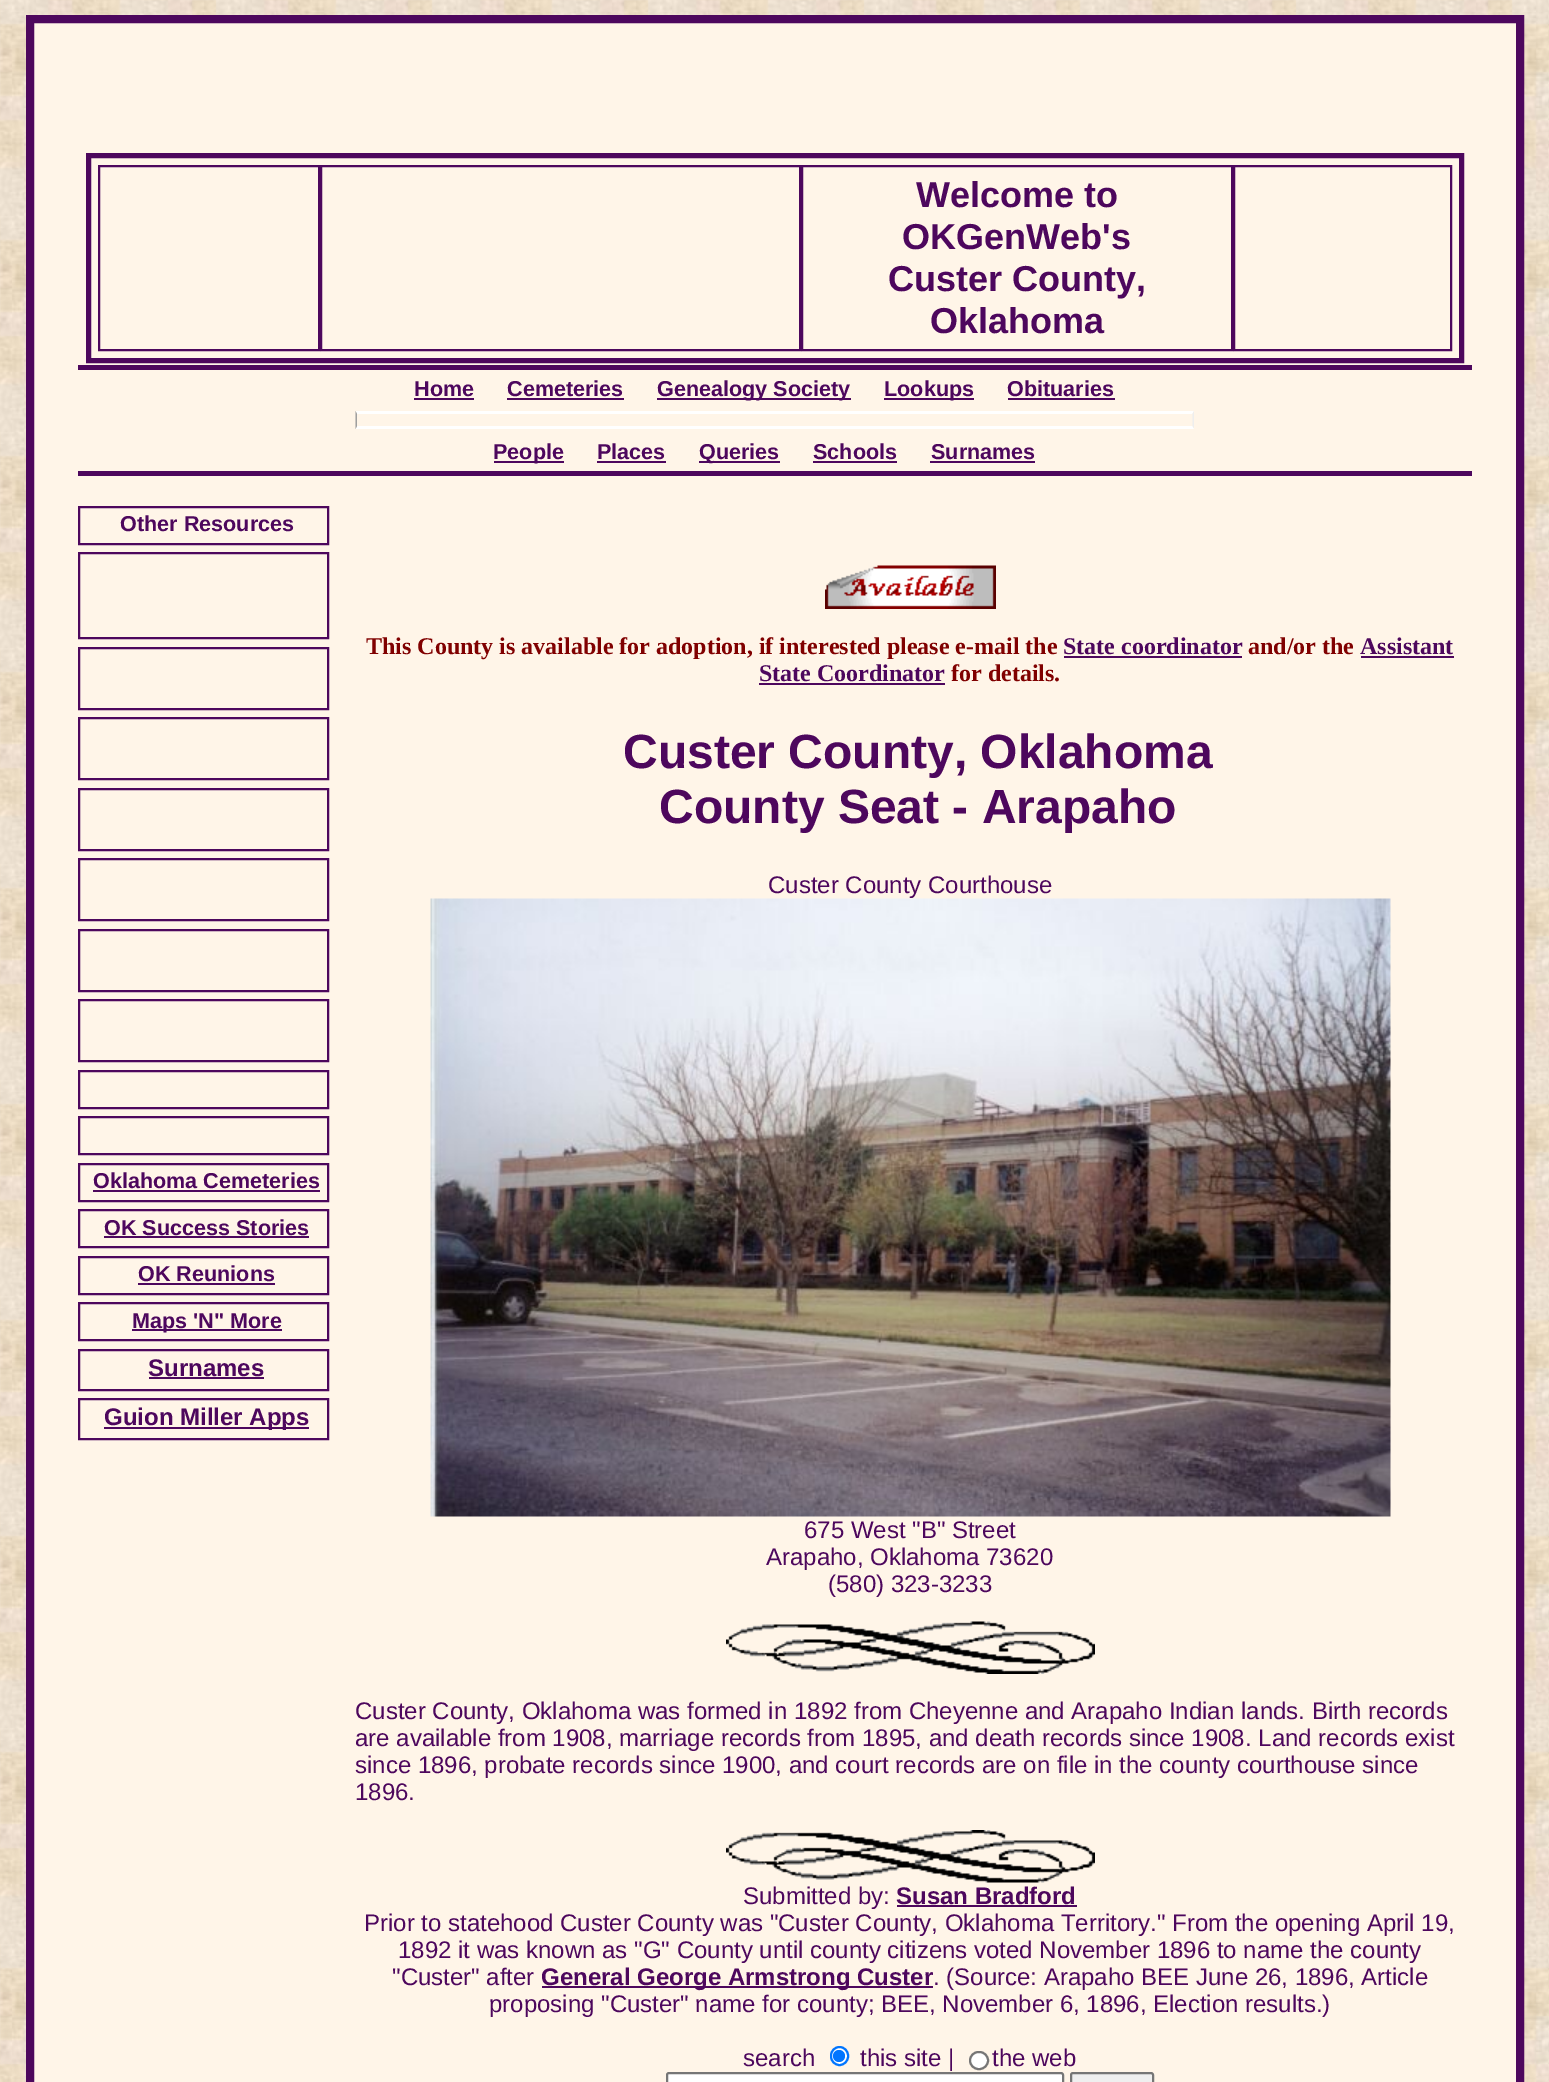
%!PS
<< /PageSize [1549 2082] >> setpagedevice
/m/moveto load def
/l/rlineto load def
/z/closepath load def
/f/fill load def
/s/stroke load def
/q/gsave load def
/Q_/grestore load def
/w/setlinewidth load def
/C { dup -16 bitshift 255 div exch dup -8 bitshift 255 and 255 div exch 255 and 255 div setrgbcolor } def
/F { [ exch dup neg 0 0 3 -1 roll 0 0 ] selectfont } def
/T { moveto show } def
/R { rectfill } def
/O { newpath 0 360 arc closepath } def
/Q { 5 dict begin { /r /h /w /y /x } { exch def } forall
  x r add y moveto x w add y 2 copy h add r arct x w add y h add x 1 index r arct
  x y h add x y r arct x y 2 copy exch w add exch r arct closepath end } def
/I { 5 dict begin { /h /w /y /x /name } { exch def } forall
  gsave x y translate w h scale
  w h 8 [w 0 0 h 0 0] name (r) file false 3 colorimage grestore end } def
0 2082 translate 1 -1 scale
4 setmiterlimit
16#FFFFFF C
0 0 1549 2082 R
(1.rgb) 0 0 1549 2082 I
16#FFF5E8 C
30 19 m 1490 0 l 0 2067 l -1490 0 l z q f Q_
16#4D075D C
8 w
s
5 w
88.5 155.5 1373 205 rectstroke
2 w
99 166 220 184 rectstroke
321 166 479 184 rectstroke
802 166 430 184 rectstroke
/LiberationSans-Bold 36 F
(Welcome to) 916 207 T
(OKGenWeb's) 902 249 T
(Custer County,) 888 291 T
(Oklahoma) 930 333 T
1234 166 217 184 rectstroke
78 365 1394 5 R
78 471 1394 5 R
/LiberationSans-Bold 21.6 F
(Home) 414 396 T
414 398 60 2 R
(Cemeteries) 507 396 T
507 398 117 2 R
657 398 194 2 R
(Genealogy Society) 657 396 T
884 398 90 2 R
(Lookups) 884 396 T
(Obituaries) 1007 396 T
1008 398 107 2 R
16#FFFFFF C
356 411 m 838 0 l -2 3 l -835 0 l z f
16#EEEEEE C
1194 411 m 0 18 l -1.5 -3 l 0 -12 l z f
16#FFFFFF C
1194 429 m -838 0 l 1 -3 l 835 0 l z f
16#9F9F9F C
355.5 429 m 0 -18 l 1.5 3 l 0 12 l z f
16#4D075D C
494 461 70 2 R
(People) 493 459 T
(Places) 597 459 T
597 461 69 2 R
699 461 81 2 R
(Queries) 699 459 T
(Schools) 813 459 T
813 461 84 2 R
(Surnames) 931 459 T
930 461 105 2 R
79 507 249 37 rectstroke
(Other Resources) 120 531 T
79 553 249 85 rectstroke
79 648 249 61 rectstroke
79 718 249 61 rectstroke
79 789 249 61 rectstroke
79 859 249 61 rectstroke
79 930 249 61 rectstroke
79 1000 249 61 rectstroke
79 1071 249 37 rectstroke
79 1117 249 37 rectstroke
79 1164 249 37 rectstroke
(Oklahoma Cemeteries) 93 1188 T
93 1190 227 2 R
79 1210 249 37 rectstroke
(OK Success Stories) 104 1235 T
104 1236 205 2 R
79 1257 249 37 rectstroke
(OK Reunions) 138 1281 T
138 1283 137 2 R
79 1303 249 37 rectstroke
132 1329 150 2 R
(Maps 'N" More) 132 1328 T
79 1350 249 40 rectstroke
/LiberationSans-Bold 24 F
(Surnames) 148 1376 T
149 1377 115 2 R
79 1399 249 40 rectstroke
104 1427 205 2 R
(Guion Miller Apps) 104 1425 T
(2.rgb) 825 565 171 44 I
/LiberationSerif-Bold 24 F
16#800000 C
(This County is available for adoption, if interested please e-mail the) 366 654 T
16#4D075D C
(State coordinator) 1063 654 T
1064 656 178 2 R
16#800000 C
(and/or the) 1248 654 T
16#4D075D C
(Assistant) 1360 654 T
1361 656 93 2 R
(State Coordinator) 759 681 T
759 683 186 2 R
16#800000 C
(for details.) 951 681 T
/LiberationSans-Bold 48 F
16#4D075D C
(Custer County, Oklahoma) 623 768 T
(County Seat - Arapaho) 659 823 T
/LiberationSans-Regular 24 F
(Custer County Courthouse) 768 893 T
(3.rgb) 430 898 961 619 I
(675 West "B" Street) 804 1538 T
(Arapaho, Oklahoma 73620) 766 1565 T
(\(580\) 323-3233) 828 1592 T
(4.rgb) 726 1621 369 53 I
(Custer County, Oklahoma was formed in 1892 from Cheyenne and Arapaho Indian lands. Birth records) 355 1719 T
(are available from 1908, marriage records from 1895, and death records since 1908. Land records exist) 355 1746 T
(since 1896, probate records since 1900, and court records are on file in the county courthouse since) 355 1773 T
(1896.) 355 1800 T
(5.rgb) 726 1830 369 53 I
(Submitted by:) 743 1904 T
/LiberationSans-Bold 24 F
(Susan Bradford) 896 1904 T
897 1905 180 2 R
/LiberationSans-Regular 24 F
(Prior to statehood Custer County was "Custer County, Oklahoma Territory." From the opening April 19,) 364 1931 T
(1892 it was known as "G" County until county citizens voted November 1896 to name the county) 398 1958 T
("Custer" after) 392 1985 T
542 1986 391 2 R
/LiberationSans-Bold 24 F
(General George Armstrong Custer) 541 1985 T
/LiberationSans-Regular 24 F
(. \(Source: Arapaho BEE June 26, 1896, Article) 933 1985 T
(proposing "Custer" name for county; BEE, November 6, 1896, Election results.\)) 489 2012 T
(search) 743 2066 T
16#FFFFFF C
831 2047 17 18 8.5 Q q f Q_
16#0075FF C
s
839 2056 6 O f
16#4D075D C
(this site |) 860 2066 T
16#FFFFFF C
970 2052 18 17 8.5 Q q f Q_
16#767676 C
s
16#4D075D C
(the web) 992 2066 T
16#FFFFFF C
667 2073 396 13 2 Q q f Q_
16#767676 C
s
16#EFEFEF C
1071 2073 82 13 2 Q q f Q_
16#767676 C
s
showpage
